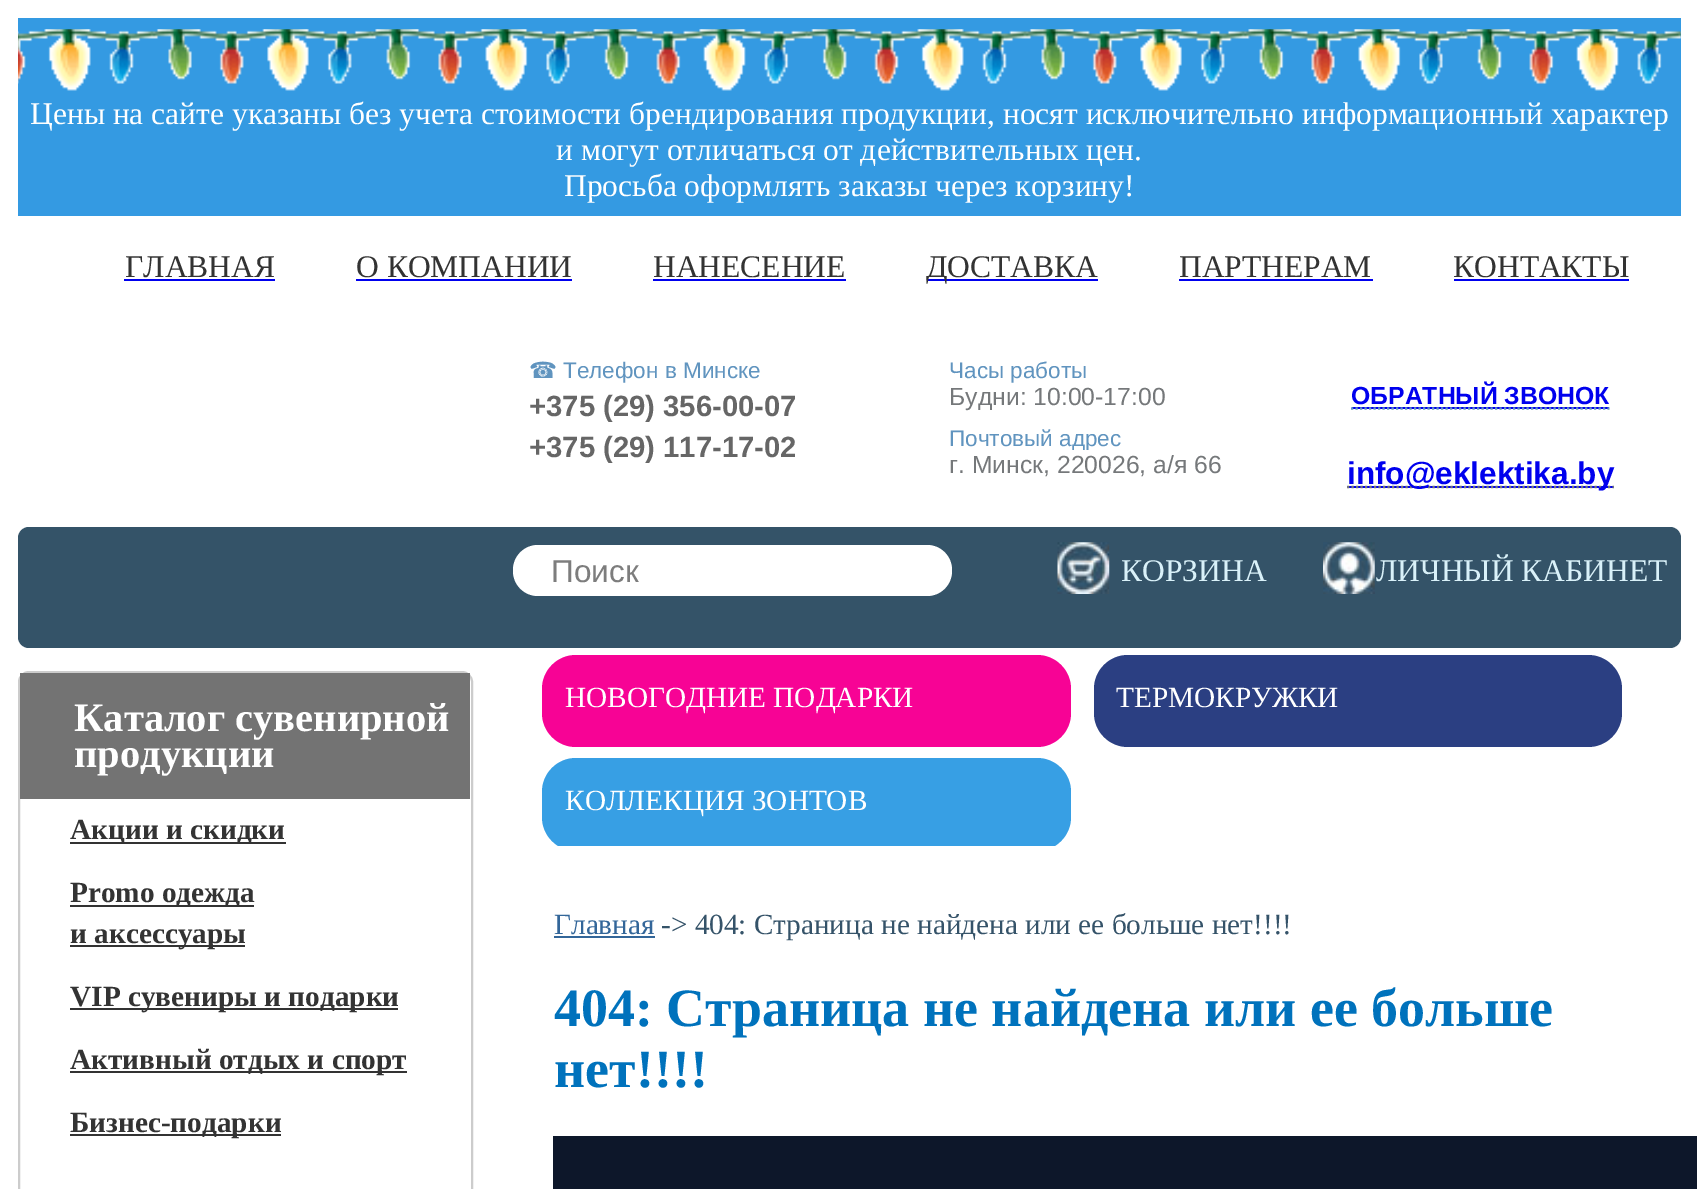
%!PS
<< /PageSize [1697 1189] >> setpagedevice
/m/moveto load def
/l/rlineto load def
/f/fill load def
/s/stroke load def
/q/gsave load def
/Q_/grestore load def
/w/setlinewidth load def
/C { dup -16 bitshift 255 div exch dup -8 bitshift 255 and 255 div exch 255 and 255 div setrgbcolor } def
/F { [ exch dup neg 0 0 3 -1 roll 0 0 ] selectfont } def
/T { moveto show } def
/R { rectfill } def
/Q { 5 dict begin { /r /h /w /y /x } { exch def } forall
  x r add y moveto x w add y 2 copy h add r arct x w add y h add x 1 index r arct
  x y h add x y r arct x y 2 copy exch w add exch r arct closepath end } def
/I { 5 dict begin { /h /w /y /x /name } { exch def } forall
  gsave x y translate w h scale
  w h 8 [w 0 0 h 0 0] name (r) file false 3 colorimage grestore end } def
0 1189 translate 1 -1 scale
4 setmiterlimit
16#FFFFFF C
0 0 1697 1189 R
16#349AE2 C
18 18 1663 198 R
(1.rgb) 18 29 1663 62 I
/LiberationSerif-Regular 31.5 F
16#FFFFFF C
(Цены на сайте указаны без учета стоимости брендирования продукции, носят исключительно информационный характер) 30 124 T
(и могут отличаться от действительных цен.) 556 160 T
(Просьба оформлять заказы через корзину!) 564 196 T
16#333333 C
(ГЛАВНАЯ) 125 277 T
16#0000EE C
124 279 151 2 R
16#333333 C
(О КОМПАНИИ) 356 277 T
16#0000EE C
356 279 216 2 R
16#333333 C
(НАНЕСЕНИЕ) 653 277 T
16#0000EE C
653 279 193 2 R
927 279 171 2 R
16#333333 C
(ДОСТАВКА) 926 277 T
(ПАРТНЕРАМ) 1179 277 T
16#0000EE C
1179 279 194 2 R
16#333333 C
(КОНТАКТЫ) 1453 277 T
16#0000EE C
1454 279 175 2 R
/DejaVuSans-Regular 22.5 F
16#6094BF C
(☎) 529 378 T
/LiberationSans-Regular 22.5 F
(Телефон в Минске) 563 378 T
/LiberationSans-Bold 29.25 F
16#666666 C
(+375 \(29\) 356-00-07) 529 416 T
(+375 \(29\) 117-17-02) 529 457 T
/LiberationSans-Regular 22.5 F
16#6094BF C
(Часы работы) 949 378 T
/LiberationSans-Regular 24.75 F
16#75787A C
(Будни: 10:00-17:00) 949 405 T
q
950 425 290 25 rectclip
/LiberationSans-Regular 22.5 F
16#6094BF C
(Почтовый адрес) 949 446 T
Q_
(г. Минск, 220026, а/я 66) 949 473 T
/LiberationSans-Bold 24.75 F
16#0000EE C
(ОБРАТНЫЙ ЗВОНОК) 1351 404 T
1352 407 257 2 R
16#6094BF C
2.2 w
[2.25 2.25] 0 setdash
1351 408.5 m 258.5 0 l s
16#0000EE C
1348 486 265 2 R
16#75787A C
1347 487 m 267 0 l s
/LiberationSans-Bold 31.5 F
16#0000EE C
(info@eklektika.by) 1347 484 T
16#345368 C
18 527 1663 121 11 Q f
16#FFFFFF C
513 545 439 51 25 Q f
/LiberationSans-Regular 31.5 F
16#7D7D7D C
(Поиск) 551 582 T
(2.rgb) 1057 542 53 52 I
/LiberationSerif-Regular 31.5 F
16#D9F1F9 C
(КОРЗИНА) 1121 581 T
(3.rgb) 1323 542 52 52 I
(ЛИЧНЫЙ КАБИНЕТ) 1376 581 T
16#CCCCCC C
2 w
[] 0 setdash
19 672 453 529 10 Q s
16#737373 C
20 673 450 126 R
/LiberationSerif-Bold 40.5 F
16#FFFFFF C
(Каталог сувенирной) 74 731 T
(продукции) 74 767 T
16#333333 C
70 842 216 2 R
/LiberationSerif-Bold 29.25 F
(Акции и скидки) 70 839 T
70 905 184 2 R
(Promo одежда) 70 902 T
70 945 175 2 R
(и аксессуары) 70 943 T
70 1008 328 2 R
(VIP сувениры и подарки) 70 1006 T
70 1071 337 2 R
(Активный отдых и спорт) 70 1069 T
70 1134 211 2 R
(Бизнес-подарки) 70 1132 T
16#F70395 C
542 655 529 92 34 Q f
/LiberationSerif-Regular 29.25 F
16#FFFFFF C
(НОВОГОДНИЕ ПОДАРКИ) 565 707 T
16#2B3F82 C
1094 655 528 92 34 Q f
16#FFFFFF C
(ТЕРМОКРУЖКИ) 1116 707 T
q
542 655 1125 191 rectclip
16#379FE4 C
542 758 529 93 34 Q f
Q_
(КОЛЛЕКЦИЯ ЗОНТОВ) 565 810 T
16#336699 C
(Главная) 554 934 T
554 936 101 2 R
16#355369 C
(-> 404: Страница не найдена или ее больше нет!!!!) 661 934 T
/LiberationSerif-Bold 54 F
16#0072BC C
(404: Страница не найдена или ее больше) 554 1026 T
(нет!!!!) 554 1087 T
16#0D172A C
553 1136 1144 53 R
showpage
